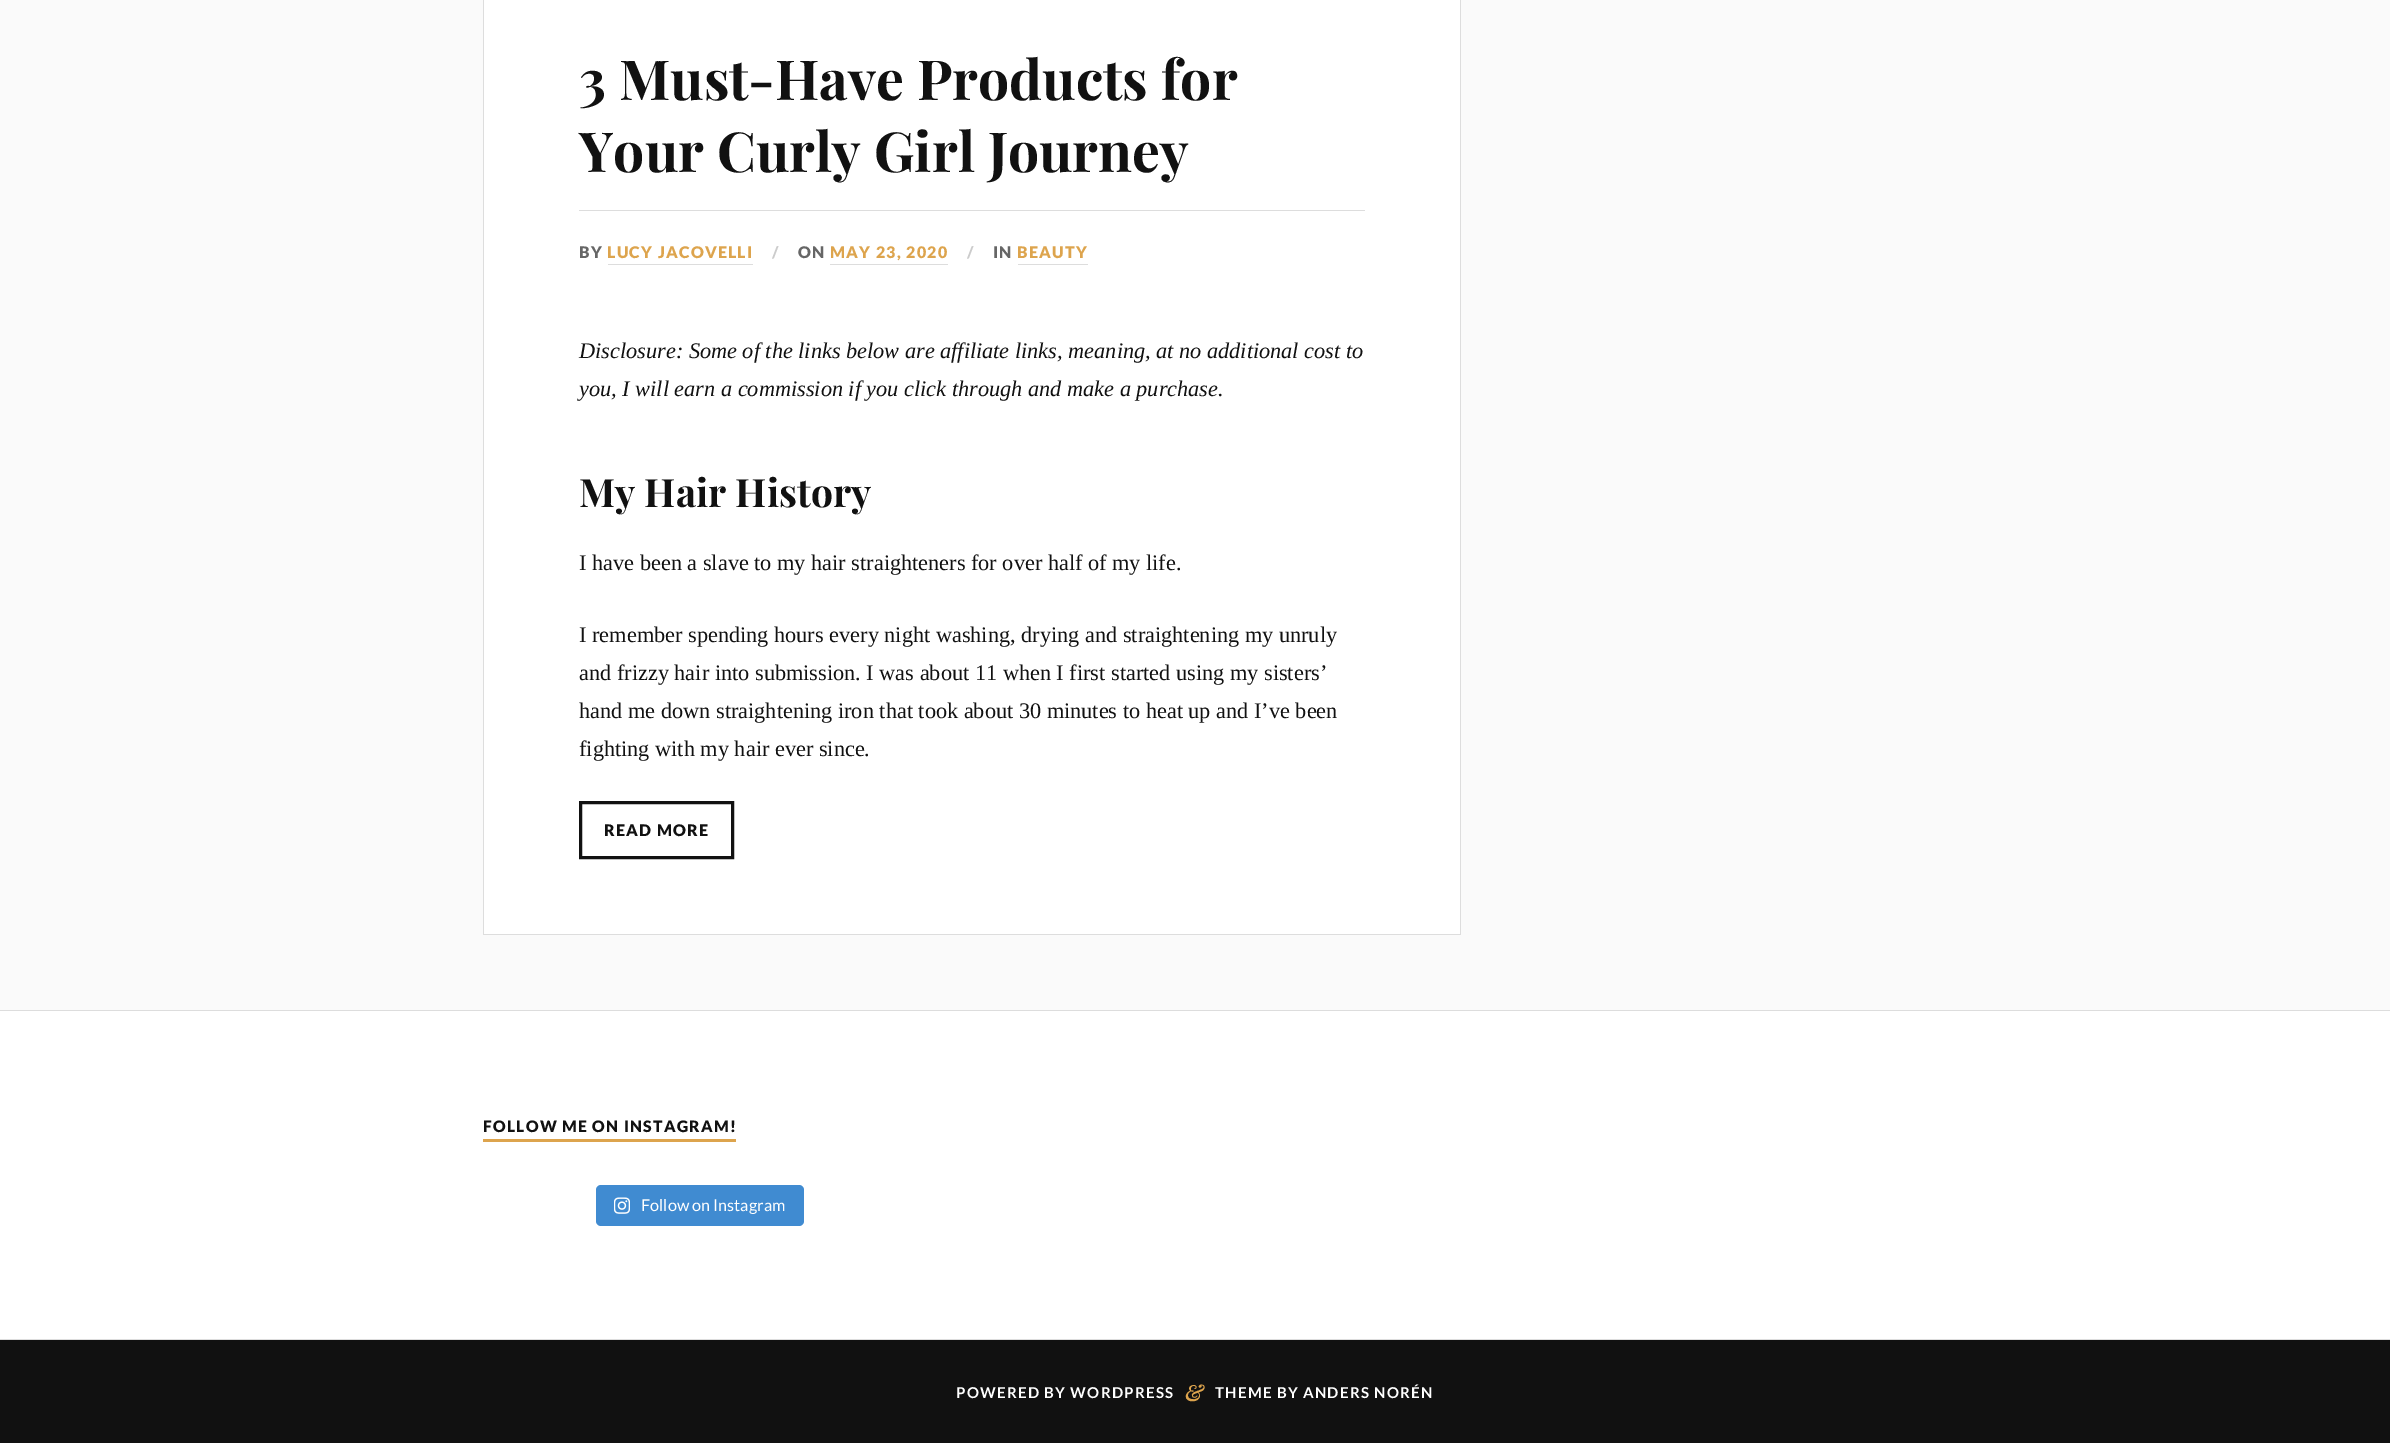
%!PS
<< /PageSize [2390 1443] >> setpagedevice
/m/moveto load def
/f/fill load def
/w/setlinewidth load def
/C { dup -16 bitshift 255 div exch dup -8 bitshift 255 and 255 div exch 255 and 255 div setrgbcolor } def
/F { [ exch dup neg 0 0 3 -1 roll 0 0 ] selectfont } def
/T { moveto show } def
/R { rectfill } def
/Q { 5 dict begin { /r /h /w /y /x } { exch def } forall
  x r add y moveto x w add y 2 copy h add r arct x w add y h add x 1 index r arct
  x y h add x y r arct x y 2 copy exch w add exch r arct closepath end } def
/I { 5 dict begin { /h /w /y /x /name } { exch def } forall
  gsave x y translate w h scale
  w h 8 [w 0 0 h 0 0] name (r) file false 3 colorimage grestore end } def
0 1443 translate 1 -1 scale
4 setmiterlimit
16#FAFAFA C
0 0 2390 1443 R
16#FFFFFF C
484 0 976 934 R
16#DDDDDD C
1460 0 1 935 R
483 934 978 1 R
483 0 1 935 R
/PlayfairDisplay-Bold 55.25 F
16#111111 C
(3 Must-Have Products for) 579 100 T
(Your Curly Girl Journey) 579 172 T
16#DDDDDD C
579 210 786 1 R
/Lato-Black 16 F
16#666666 C
579 258 m 1.25 0 (BY) ashow
16#DDA44D C
607 258 m 1.25 0 (LUCY JACOVELLI) ashow
16#DDDDDD C
608 264 145 1 R
16#CCCCCC C
772 258 m 1.25 0 (/) ashow
16#666666 C
798 258 m 1.25 0 (ON) ashow
16#DDA44D C
830 258 m 1.25 0 (MAY 23, 2020) ashow
16#DDDDDD C
830 264 118 1 R
16#CCCCCC C
967 258 m 1.25 0 (/) ashow
16#666666 C
993 258 m 1.25 0 (IN) ashow
16#DDA44D C
1017 258 m 1.25 0 (BEAUTY) ashow
16#DDDDDD C
1018 264 70 1 R
/LiberationSerif-Italic 22.3 F
16#111111 C
(Disclosure: Some of the links below are affiliate links, meaning, at no additional cost to) 579 358 T
(you, I will earn a commission if you click through and make a purchase.) 579 396 T
/PlayfairDisplay-Bold 39 F
(My Hair History) 579 507 T
/LiberationSerif-Regular 22.3 F
(I have been a slave to my hair straighteners for over half of my life.) 579 570 T
(I remember spending hours every night washing, drying and straightening my unruly) 579 642 T
(and frizzy hair into submission. I was about 11 when I first started using my sisters’) 579 680 T
(hand me down straightening iron that took about 30 minutes to heat up and I’ve been) 579 718 T
(fighting with my hair ever since.) 579 756 T
3 w
580.5 802.5 152 55 rectstroke
/Lato-Black 16 F
604 836 m 1.25 0 (READ MORE) ashow
16#FFFFFF C
0 1011 2390 328 R
16#DDDDDD C
0 1010 2390 1 R
0 1339 2390 1 R
16#DDA44D C
483 1139 253 3 R
/Lato-Black 15.75 F
16#111111 C
483 1132 m 1.25 0 (FOLLOW ME ON INSTAGRAM!) ashow
16#408BD1 C
596 1185 208 41 5 Q f
(1.rgb) 614 1197 16 17 I
/Lato-Regular 16.25 F
16#FFFFFF C
(Follow on Instagram) 641 1211 T
16#111111 C
0 1340 2390 103 R
/Lato-Bold 15 F
16#FFFFFF C
956 1398 m 1.25 0 (POWERED BY WORDPRESS) ashow
/PlayfairDisplay-BoldItalic 22 F
16#DDA44D C
1185 1401 m 1.25 0 (&) ashow
/Lato-Bold 15 F
16#FFFFFF C
1215 1398 m 1.25 0 (THEME BY ANDERS NORÉN) ashow
showpage
